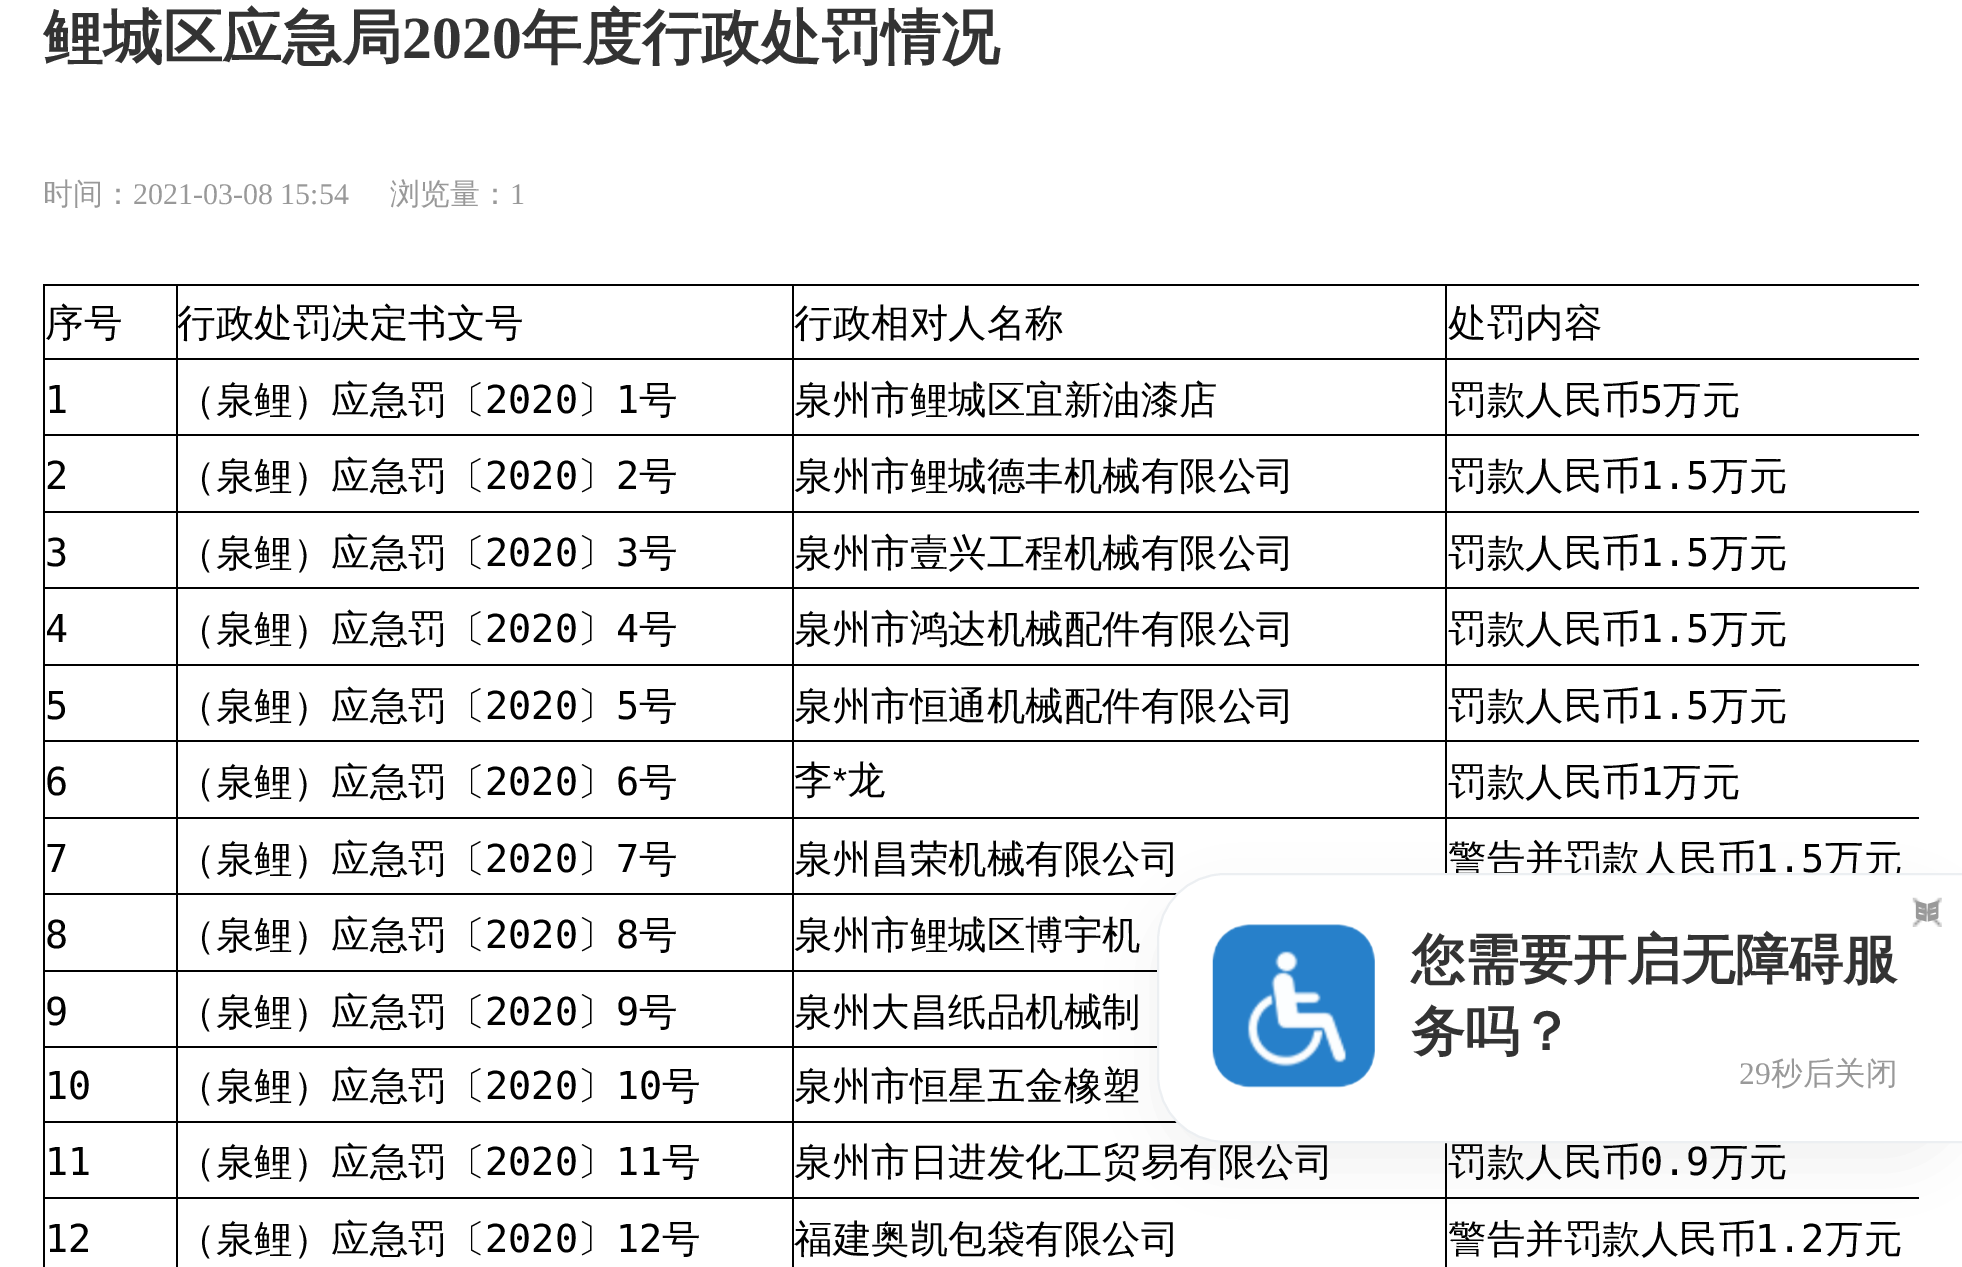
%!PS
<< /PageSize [1962 1267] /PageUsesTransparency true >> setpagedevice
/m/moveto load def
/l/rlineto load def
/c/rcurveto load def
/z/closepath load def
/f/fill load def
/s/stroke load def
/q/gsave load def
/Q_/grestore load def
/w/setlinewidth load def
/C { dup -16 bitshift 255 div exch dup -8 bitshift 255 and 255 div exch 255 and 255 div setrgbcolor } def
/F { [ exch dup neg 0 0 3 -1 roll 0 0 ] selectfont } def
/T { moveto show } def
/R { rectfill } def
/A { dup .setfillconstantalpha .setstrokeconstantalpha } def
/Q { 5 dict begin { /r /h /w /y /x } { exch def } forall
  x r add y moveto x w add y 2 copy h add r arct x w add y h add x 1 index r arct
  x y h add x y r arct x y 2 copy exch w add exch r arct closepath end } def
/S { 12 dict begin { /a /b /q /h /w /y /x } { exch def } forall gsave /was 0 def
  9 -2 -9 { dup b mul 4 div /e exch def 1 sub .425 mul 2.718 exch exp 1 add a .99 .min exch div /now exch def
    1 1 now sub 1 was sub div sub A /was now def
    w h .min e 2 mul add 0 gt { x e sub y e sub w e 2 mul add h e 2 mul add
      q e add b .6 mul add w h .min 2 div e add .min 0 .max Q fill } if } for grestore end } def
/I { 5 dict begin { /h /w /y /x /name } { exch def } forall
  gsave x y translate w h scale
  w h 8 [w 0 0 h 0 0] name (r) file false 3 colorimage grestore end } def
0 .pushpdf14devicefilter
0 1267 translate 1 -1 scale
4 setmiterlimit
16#FFFFFF C
0 0 1962 1267 R
/WenQuanYiZenHei-Bold 59.75 F
16#333333 C
(鲤城区应急局) 43 58 T
/LiberationSerif-Bold 59.75 F
(2020) 402 58 T
/WenQuanYiZenHei-Bold 59.75 F
(年度行政处罚情况) 522 58 T
/WenQuanYiZenHei-Medium 30 F
16#999999 C
(时间：) 43 204 T
/LiberationSerif-Regular 30 F
(2021-03-08 15:54) 133 204 T
/WenQuanYiZenHei-Medium 30 F
(浏览量：) 390 204 T
/LiberationSerif-Regular 30 F
(1) 510 204 T
16#000000 C
43 284 1876 2 R
1445 817 2 56 R
1445 817 474 2 R
1445 740 2 79 R
1445 740 474 2 R
1445 664 2 79 R
1445 664 474 2 R
1445 587 2 79 R
1445 587 474 2 R
1445 511 2 79 R
1445 511 474 2 R
1445 434 2 79 R
1445 434 474 2 R
1445 358 2 79 R
1445 358 474 2 R
1445 284 2 76 R
1445 1197 2 70 R
1445 1197 474 2 R
1445 1143 2 56 R
792 1197 2 70 R
792 1197 655 2 R
792 1121 2 78 R
792 1121 385 2 R
792 1046 2 77 R
792 1046 365 2 R
792 970 2 79 R
792 970 365 2 R
792 893 2 79 R
792 893 385 2 R
792 817 2 79 R
792 817 655 2 R
792 740 2 79 R
792 740 655 2 R
792 664 2 79 R
792 664 655 2 R
792 587 2 79 R
792 587 655 2 R
792 511 2 79 R
792 511 655 2 R
792 434 2 79 R
792 434 655 2 R
792 358 2 79 R
792 358 655 2 R
792 284 2 76 R
176 1197 2 70 R
176 1197 618 2 R
176 1121 2 78 R
176 1121 618 2 R
176 1046 2 77 R
176 1046 618 2 R
176 970 2 79 R
176 970 618 2 R
176 893 2 79 R
176 893 618 2 R
176 817 2 79 R
176 817 618 2 R
176 740 2 79 R
176 740 618 2 R
176 664 2 79 R
176 664 618 2 R
176 587 2 79 R
176 587 618 2 R
176 511 2 79 R
176 511 618 2 R
176 434 2 79 R
176 434 618 2 R
176 358 2 79 R
176 358 618 2 R
176 284 2 76 R
43 1197 2 70 R
43 1197 135 2 R
43 1121 2 78 R
43 1121 135 2 R
43 1046 2 77 R
43 1046 135 2 R
43 970 2 79 R
43 970 135 2 R
43 893 2 79 R
43 893 135 2 R
43 817 2 79 R
43 817 135 2 R
43 740 2 79 R
43 740 135 2 R
43 664 2 79 R
43 664 135 2 R
43 587 2 79 R
43 587 135 2 R
43 511 2 79 R
43 511 135 2 R
43 434 2 79 R
43 434 135 2 R
43 358 2 79 R
43 358 135 2 R
43 284 2 76 R
/WenQuanYiZenHei-Medium 38.5 F
(序号) 45 336 T
(行政处罚决定书文号) 177 336 T
(行政相对人名称) 794 336 T
(处罚内容) 1448 336 T
/DejaVuSansMono-Regular 38.5 F
(1) 45 413 T
/WenQuanYiZenHei-Medium 38.5 F
(（泉鲤）应急罚〔) 177 413 T
/DejaVuSansMono-Regular 38.5 F
(2020) 485 413 T
/WenQuanYiZenHei-Medium 38.5 F
(〕) 577 413 T
/DejaVuSansMono-Regular 38.5 F
(1) 616 413 T
/WenQuanYiZenHei-Medium 38.5 F
(号) 639 413 T
(泉州市鲤城区宜新油漆店) 794 413 T
(罚款人民币) 1448 413 T
/DejaVuSansMono-Regular 38.5 F
(5) 1640 413 T
/WenQuanYiZenHei-Medium 38.5 F
(万元) 1663 413 T
/DejaVuSansMono-Regular 38.5 F
(2) 45 489 T
/WenQuanYiZenHei-Medium 38.5 F
(（泉鲤）应急罚〔) 177 489 T
/DejaVuSansMono-Regular 38.5 F
(2020) 485 489 T
/WenQuanYiZenHei-Medium 38.5 F
(〕) 577 489 T
/DejaVuSansMono-Regular 38.5 F
(2) 616 489 T
/WenQuanYiZenHei-Medium 38.5 F
(号) 639 489 T
(泉州市鲤城德丰机械有限公司) 794 489 T
(罚款人民币) 1448 489 T
/DejaVuSansMono-Regular 38.5 F
(1.5) 1640 489 T
/WenQuanYiZenHei-Medium 38.5 F
(万元) 1710 489 T
/DejaVuSansMono-Regular 38.5 F
(3) 45 566 T
/WenQuanYiZenHei-Medium 38.5 F
(（泉鲤）应急罚〔) 177 566 T
/DejaVuSansMono-Regular 38.5 F
(2020) 485 566 T
/WenQuanYiZenHei-Medium 38.5 F
(〕) 577 566 T
/DejaVuSansMono-Regular 38.5 F
(3) 616 566 T
/WenQuanYiZenHei-Medium 38.5 F
(号) 639 566 T
(泉州市壹兴工程机械有限公司) 794 566 T
(罚款人民币) 1448 566 T
/DejaVuSansMono-Regular 38.5 F
(1.5) 1640 566 T
/WenQuanYiZenHei-Medium 38.5 F
(万元) 1710 566 T
/DejaVuSansMono-Regular 38.5 F
(4) 45 642 T
/WenQuanYiZenHei-Medium 38.5 F
(（泉鲤）应急罚〔) 177 642 T
/DejaVuSansMono-Regular 38.5 F
(2020) 485 642 T
/WenQuanYiZenHei-Medium 38.5 F
(〕) 577 642 T
/DejaVuSansMono-Regular 38.5 F
(4) 616 642 T
/WenQuanYiZenHei-Medium 38.5 F
(号) 639 642 T
(泉州市鸿达机械配件有限公司) 794 642 T
(罚款人民币) 1448 642 T
/DejaVuSansMono-Regular 38.5 F
(1.5) 1640 642 T
/WenQuanYiZenHei-Medium 38.5 F
(万元) 1710 642 T
/DejaVuSansMono-Regular 38.5 F
(5) 45 719 T
/WenQuanYiZenHei-Medium 38.5 F
(（泉鲤）应急罚〔) 177 719 T
/DejaVuSansMono-Regular 38.5 F
(2020) 485 719 T
/WenQuanYiZenHei-Medium 38.5 F
(〕) 577 719 T
/DejaVuSansMono-Regular 38.5 F
(5) 616 719 T
/WenQuanYiZenHei-Medium 38.5 F
(号) 639 719 T
(泉州市恒通机械配件有限公司) 794 719 T
(罚款人民币) 1448 719 T
/DejaVuSansMono-Regular 38.5 F
(1.5) 1640 719 T
/WenQuanYiZenHei-Medium 38.5 F
(万元) 1710 719 T
/DejaVuSansMono-Regular 38.5 F
(6) 45 795 T
/WenQuanYiZenHei-Medium 38.5 F
(（泉鲤）应急罚〔) 177 795 T
/DejaVuSansMono-Regular 38.5 F
(2020) 485 795 T
/WenQuanYiZenHei-Medium 38.5 F
(〕) 577 795 T
/DejaVuSansMono-Regular 38.5 F
(6) 616 795 T
/WenQuanYiZenHei-Medium 38.5 F
(号) 639 795 T
(李) 794 793 T
/LiberationSans-Regular 36 F
(*) 833 793 T
/WenQuanYiZenHei-Medium 38.5 F
(龙) 847 793 T
(罚款人民币) 1448 795 T
/DejaVuSansMono-Regular 38.5 F
(1) 1640 795 T
/WenQuanYiZenHei-Medium 38.5 F
(万元) 1663 795 T
/DejaVuSansMono-Regular 38.5 F
(7) 45 872 T
/WenQuanYiZenHei-Medium 38.5 F
(（泉鲤）应急罚〔) 177 872 T
/DejaVuSansMono-Regular 38.5 F
(2020) 485 872 T
/WenQuanYiZenHei-Medium 38.5 F
(〕) 577 872 T
/DejaVuSansMono-Regular 38.5 F
(7) 616 872 T
/WenQuanYiZenHei-Medium 38.5 F
(号) 639 872 T
(泉州昌荣机械有限公司) 794 872 T
(警告并罚款人民币) 1448 872 T
/DejaVuSansMono-Regular 38.5 F
(1.5) 1755 872 T
/WenQuanYiZenHei-Medium 38.5 F
(万元) 1825 872 T
/DejaVuSansMono-Regular 38.5 F
(8) 45 948 T
/WenQuanYiZenHei-Medium 38.5 F
(（泉鲤）应急罚〔) 177 948 T
/DejaVuSansMono-Regular 38.5 F
(2020) 485 948 T
/WenQuanYiZenHei-Medium 38.5 F
(〕) 577 948 T
/DejaVuSansMono-Regular 38.5 F
(8) 616 948 T
/WenQuanYiZenHei-Medium 38.5 F
(号) 639 948 T
(泉州市鲤城区博宇机) 794 948 T
/DejaVuSansMono-Regular 38.5 F
(9) 45 1025 T
/WenQuanYiZenHei-Medium 38.5 F
(（泉鲤）应急罚〔) 177 1025 T
/DejaVuSansMono-Regular 38.5 F
(2020) 485 1025 T
/WenQuanYiZenHei-Medium 38.5 F
(〕) 577 1025 T
/DejaVuSansMono-Regular 38.5 F
(9) 616 1025 T
/WenQuanYiZenHei-Medium 38.5 F
(号) 639 1025 T
(泉州大昌纸品机械制) 794 1025 T
/DejaVuSansMono-Regular 38.5 F
(10) 45 1099 T
/WenQuanYiZenHei-Medium 38.5 F
(（泉鲤）应急罚〔) 177 1099 T
/DejaVuSansMono-Regular 38.5 F
(2020) 485 1099 T
/WenQuanYiZenHei-Medium 38.5 F
(〕) 577 1099 T
/DejaVuSansMono-Regular 38.5 F
(10) 616 1099 T
/WenQuanYiZenHei-Medium 38.5 F
(号) 662 1099 T
(泉州市恒星五金橡塑) 794 1099 T
/DejaVuSansMono-Regular 38.5 F
(11) 45 1175 T
/WenQuanYiZenHei-Medium 38.5 F
(（泉鲤）应急罚〔) 177 1175 T
/DejaVuSansMono-Regular 38.5 F
(2020) 485 1175 T
/WenQuanYiZenHei-Medium 38.5 F
(〕) 577 1175 T
/DejaVuSansMono-Regular 38.5 F
(11) 616 1175 T
/WenQuanYiZenHei-Medium 38.5 F
(号) 662 1175 T
(泉州市日进发化工贸易有限公司) 794 1175 T
(罚款人民币) 1448 1175 T
/DejaVuSansMono-Regular 38.5 F
(0.9) 1640 1175 T
/WenQuanYiZenHei-Medium 38.5 F
(万元) 1710 1175 T
/DejaVuSansMono-Regular 38.5 F
(12) 45 1252 T
/WenQuanYiZenHei-Medium 38.5 F
(（泉鲤）应急罚〔) 177 1252 T
/DejaVuSansMono-Regular 38.5 F
(2020) 485 1252 T
/WenQuanYiZenHei-Medium 38.5 F
(〕) 577 1252 T
/DejaVuSansMono-Regular 38.5 F
(12) 616 1252 T
/WenQuanYiZenHei-Medium 38.5 F
(号) 662 1252 T
(福建奥凯包袋有限公司) 794 1252 T
(警告并罚款人民币) 1448 1252 T
/DejaVuSansMono-Regular 38.5 F
(1.2) 1755 1252 T
/WenQuanYiZenHei-Medium 38.5 F
(万元) 1825 1252 T
16#040404 C
1157 896 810 270 68 30.5 .05 S
16#FFFFFF C
1225 874 m 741 0 l 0 268 l -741 0 l -37 0 -67 -30 -67 -67 c 0 -134 l 0 -37 30 -67 67 -67 c z q f Q_
16#ECEFF2 C
2 w
s
(1.rgb) 1912 897 30 30 I
(2.rgb) 1915 901 24 21 I
(3.rgb) 1212 924 163 164 I
/WenQuanYiZenHei-Bold 54 F
16#333333 C
(您需要开启无障碍服) 1411 978 T
(务吗？) 1411 1050 T
/LiberationSerif-Regular 31.5 F
16#999999 C
(29) 1739 1084 T
/WenQuanYiZenHei-Medium 31.5 F
(秒后关闭) 1771 1084 T
.poppdf14devicefilter showpage
